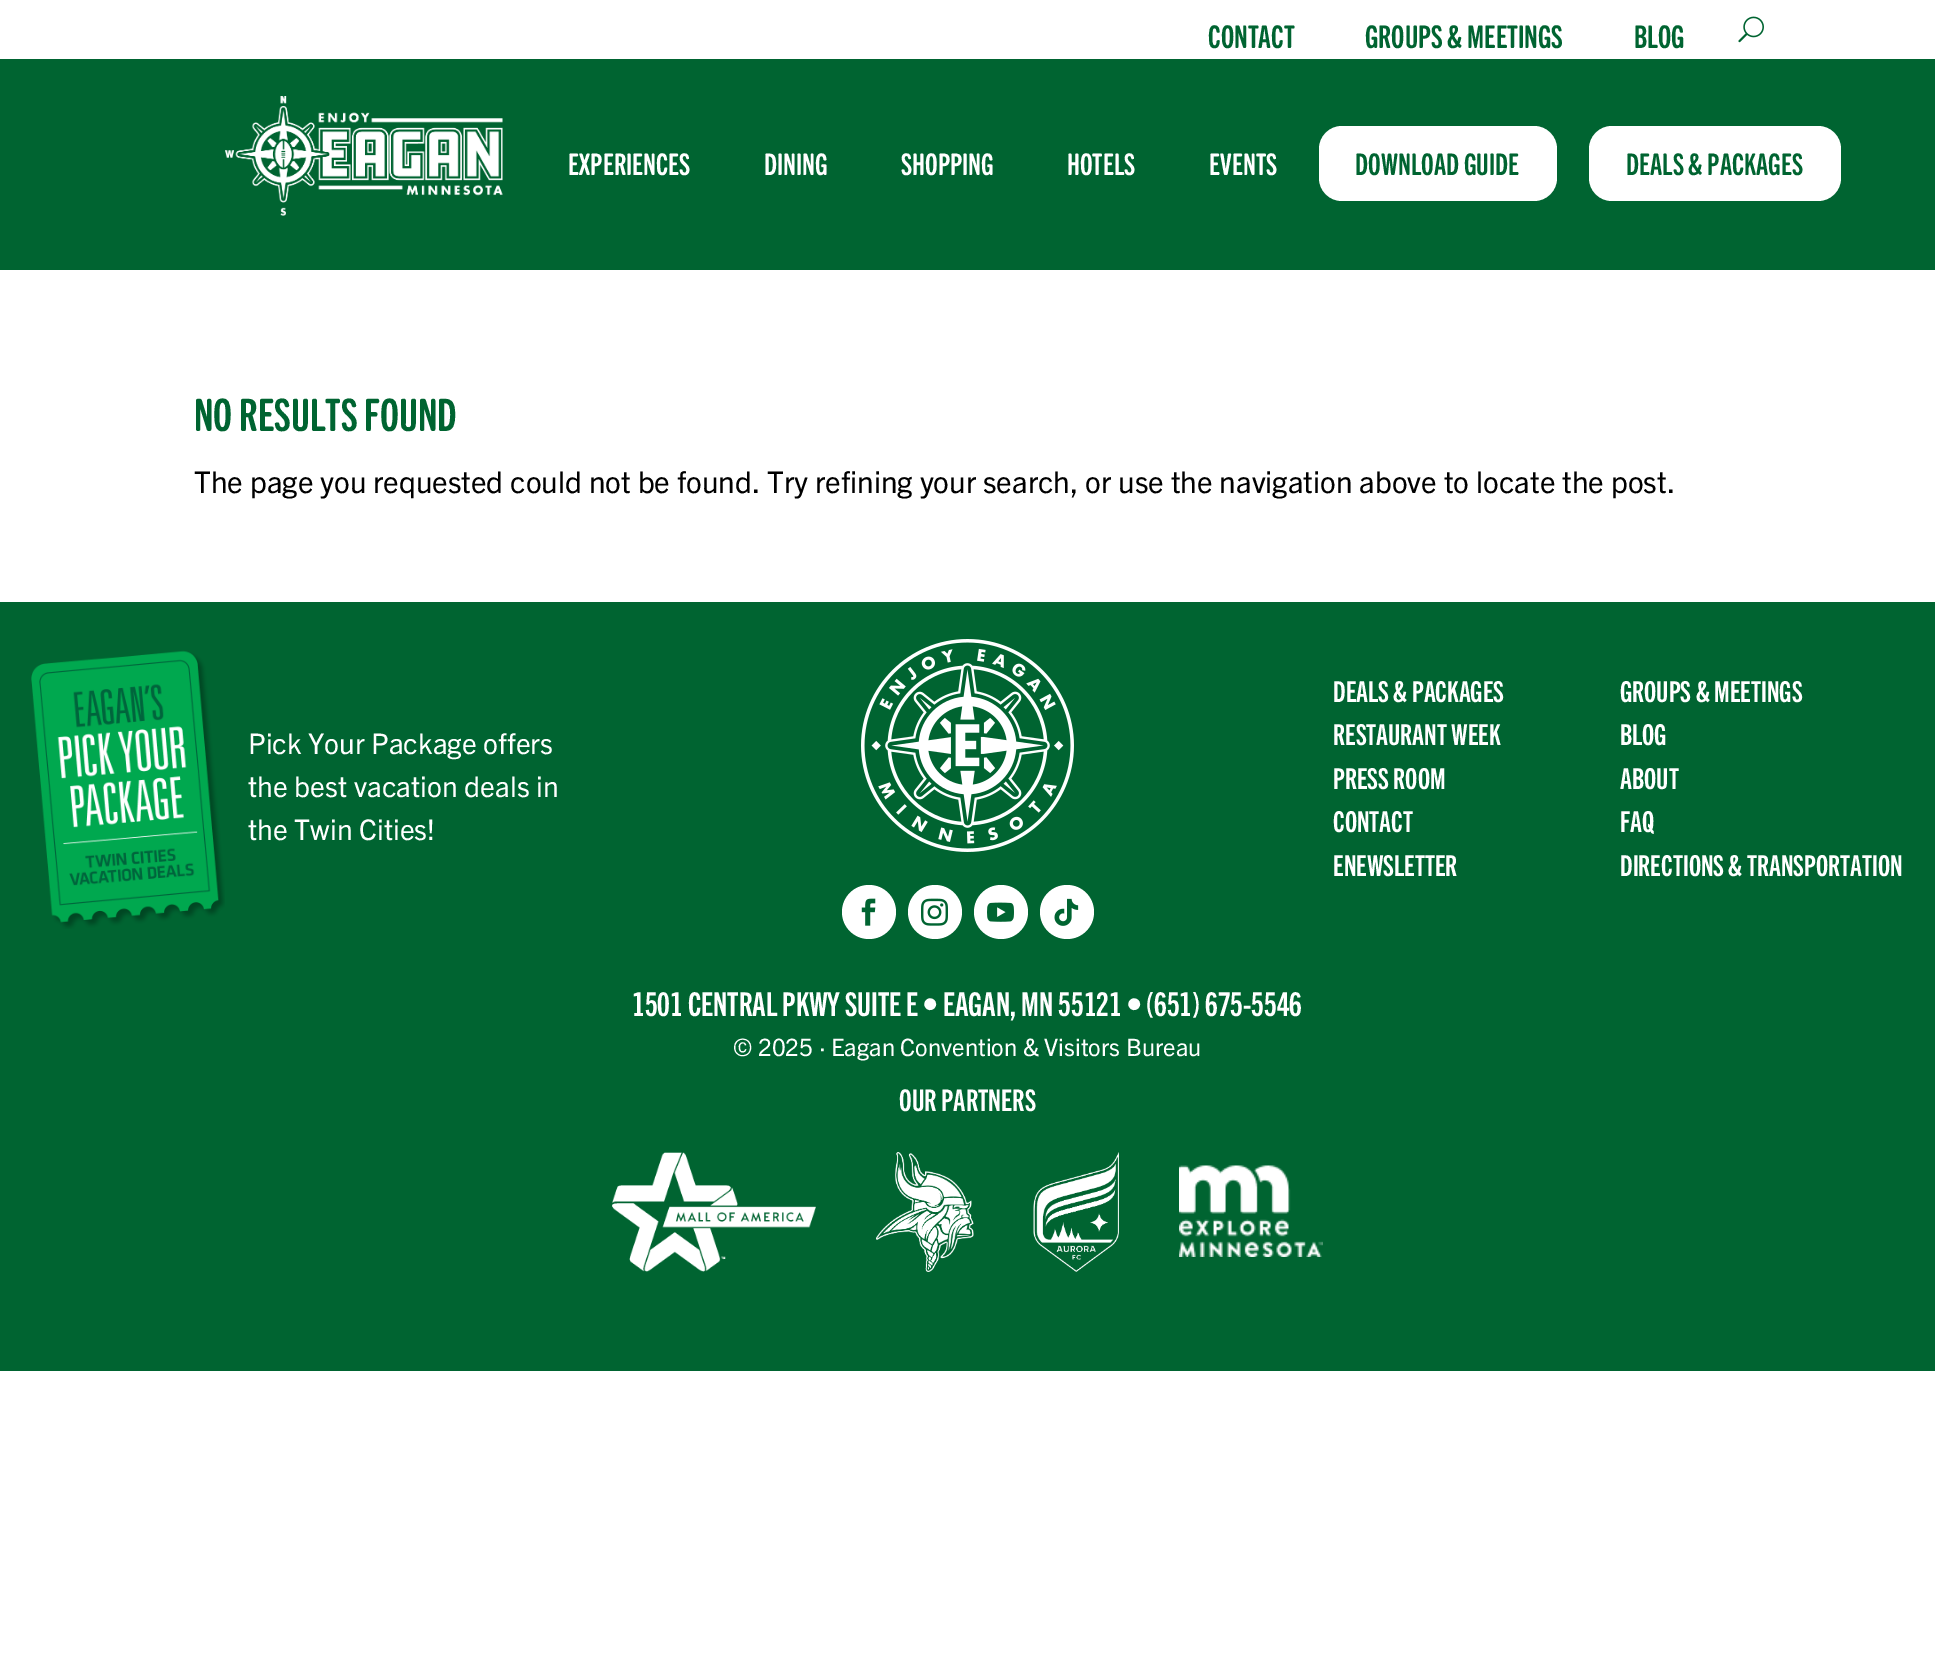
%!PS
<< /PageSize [1935 1656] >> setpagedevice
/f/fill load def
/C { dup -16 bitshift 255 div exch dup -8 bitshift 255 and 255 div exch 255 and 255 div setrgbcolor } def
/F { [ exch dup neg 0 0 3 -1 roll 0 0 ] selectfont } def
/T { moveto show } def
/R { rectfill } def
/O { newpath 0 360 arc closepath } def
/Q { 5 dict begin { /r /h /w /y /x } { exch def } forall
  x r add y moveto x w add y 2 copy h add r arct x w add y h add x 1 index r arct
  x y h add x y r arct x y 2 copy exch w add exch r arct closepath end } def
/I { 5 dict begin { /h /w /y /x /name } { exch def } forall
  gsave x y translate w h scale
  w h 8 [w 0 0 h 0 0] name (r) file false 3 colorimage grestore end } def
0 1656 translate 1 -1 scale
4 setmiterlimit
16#FFFFFF C
0 0 1935 1656 R
16#006431 C
0 59 1935 211 R
/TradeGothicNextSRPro-Bold 31.5 F
(CONTACT) 1208 48 T
(GROUPS & MEETINGS) 1365 48 T
(BLOG) 1634 48 T
(1.rgb) 1738 16 26 27 I
(2.rgb) 225 96 278 120 I
/TradeGothicNextSRPro-Bold 30 F
16#FFFFFF C
(EXPERIENCES) 568 175 T
(DINING) 764 175 T
(SHOPPING) 901 175 T
(HOTELS) 1067 175 T
(EVENTS) 1209 175 T
1319 126 238 75 23 Q f
16#006431 C
(DOWNLOAD GUIDE) 1355 175 T
16#FFFFFF C
1589 126 252 75 23 Q f
16#006431 C
(DEALS & PACKAGES) 1626 175 T
/TradeGothicNextSRPro-Bold 45 F
(NO RESULTS FOUND) 194 431 T
/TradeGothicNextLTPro-Regular 30 F
16#000000 C
(The page you requested could not be found. Try refining your search, or use the navigation above to locate the post.) 194 493 T
16#006431 C
0 602 1935 769 R
(3.rgb) 31 650 194 279 I
/TradeGothicNextLTPro-Regular 28.5 F
16#FFFFFF C
(Pick Your Package offers) 248 754 T
(the best vacation deals in) 248 797 T
(the Twin Cities!) 248 840 T
/TradeGothicNextLTPro-Bold 29 F
(DEALS & PACKAGES) 1333 702 T
(GROUPS & MEETINGS) 1620 702 T
(RESTAURANT WEEK) 1333 745 T
(BLOG) 1620 745 T
(PRESS ROOM) 1333 789 T
(ABOUT) 1620 789 T
(CONTACT) 1333 832 T
(FAQ) 1620 832 T
(ENEWSLETTER) 1333 876 T
(DIRECTIONS & TRANSPORTATION) 1620 876 T
(4.rgb) 861 639 213 213 I
869 912 27 O f
(5.rgb) 861 898 15 28 I
935 912 27 O f
(6.rgb) 921 898 27 28 I
1001 912 27 O f
(7.rgb) 987 902 27 20 I
1067 912 27 O f
(8.rgb) 1054 898 25 28 I
/TradeGothicNextLTPro-Bold 33 F
(1501 CENTRAL PKWY SUITE E • EAGAN, MN 55121 • \(651\) 675-5546) 632 1016 T
/TradeGothicNextLTPro-Regular 24 F
(© 2025 · Eagan Convention & Visitors Bureau) 733 1056 T
/TradeGothicNextLTPro-Bold 30 F
(OUR PARTNERS) 899 1111 T
(9.rgb) 612 1152 204 120 I
(10.rgb) 876 1152 98 120 I
(11.rgb) 1033 1152 86 120 I
(12.rgb) 1179 1165 144 92 I
showpage
